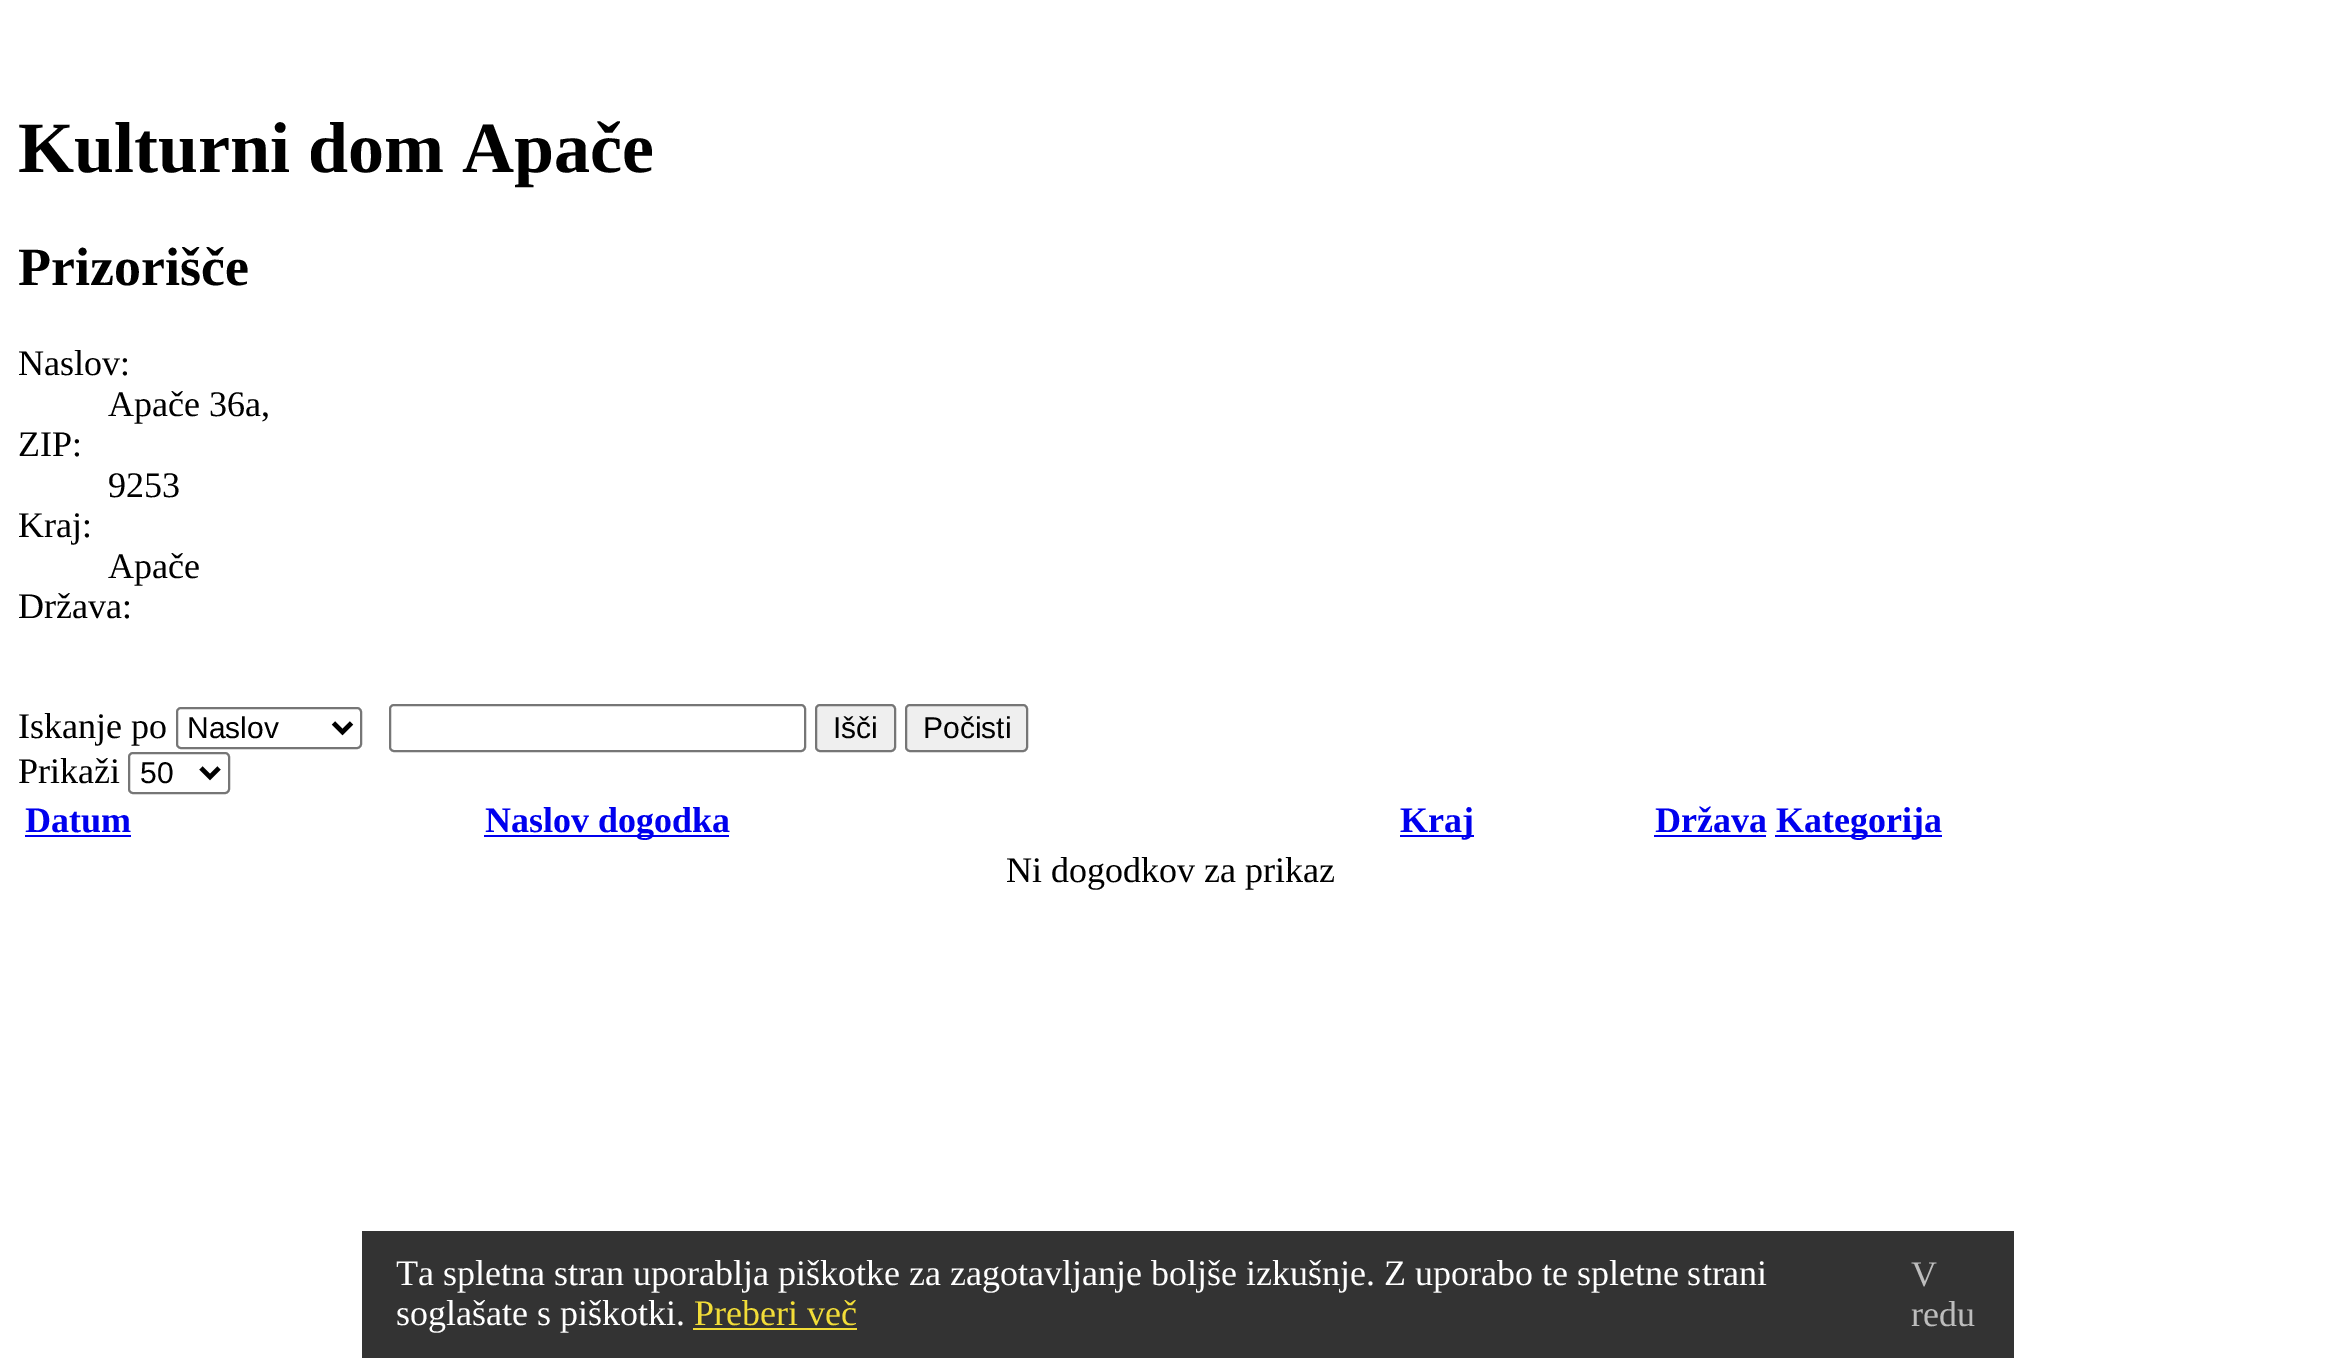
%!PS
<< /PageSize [2338 1358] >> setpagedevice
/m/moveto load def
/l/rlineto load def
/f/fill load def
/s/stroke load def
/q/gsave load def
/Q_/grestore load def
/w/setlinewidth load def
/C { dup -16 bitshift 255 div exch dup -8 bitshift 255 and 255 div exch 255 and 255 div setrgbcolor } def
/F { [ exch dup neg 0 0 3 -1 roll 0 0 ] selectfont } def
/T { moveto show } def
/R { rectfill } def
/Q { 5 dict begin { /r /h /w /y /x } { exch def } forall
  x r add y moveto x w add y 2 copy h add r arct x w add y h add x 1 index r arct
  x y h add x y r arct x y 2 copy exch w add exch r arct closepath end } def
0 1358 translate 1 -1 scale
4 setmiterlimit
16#FFFFFF C
0 0 2338 1358 R
/LiberationSerif-Bold 72 F
16#000000 C
(Kulturni dom Apače) 18 172 T
/LiberationSerif-Bold 54 F
(Prizorišče) 18 285 T
/LiberationSerif-Regular 36 F
(Naslov:) 18 375 T
(Apače 36a,) 108 416 T
(ZIP:) 18 456 T
(9253) 108 497 T
(Kraj:) 18 537 T
(Apače) 108 578 T
(Država:) 18 618 T
(Iskanje po) 18 738 T
16#767676 C
2 w
177 708 184 40 4 Q s
16#000000 C
4.5 w
333.5 723 m 9 9 l 9 -9 l s
/LiberationSans-Regular 30 F
(Naslov) 187 738 T
16#767676 C
2 w
390 705 415 46 4 Q s
16#EFEFEF C
816 705 79 46 4 Q q f Q_
16#767676 C
s
16#000000 C
(Išči) 833 738 T
16#EFEFEF C
906 705 121 46 4 Q q f Q_
16#767676 C
s
16#000000 C
(Počisti) 923 738 T
/LiberationSerif-Regular 36 F
(Prikaži) 18 783 T
16#767676 C
129 753 100 40 4 Q s
16#000000 C
4.5 w
201 768 m 9 9 l 9 -9 l s
/LiberationSans-Regular 30 F
(50) 140 783 T
/LiberationSerif-Bold 36 F
16#0000EE C
(Datum) 25 832 T
25 835 106 2 R
484 835 245 2 R
(Naslov dogodka) 485 832 T
1400 835 74 2 R
(Kraj) 1400 832 T
(Država) 1655 832 T
1654 835 112 2 R
1775 835 167 2 R
(Kategorija) 1776 832 T
/LiberationSerif-Regular 36 F
16#000000 C
(Ni dogodkov za prikaz) 1006 882 T
16#333333 C
362 1231 1652 127 R
16#FFFFFF C
(Ta spletna stran uporablja piškotke za zagotavljanje boljše izkušnje. Z uporabo te spletne strani) 396 1285 T
(soglašate s piškotki.) 396 1325 T
16#F2DD38 C
(Preberi več) 694 1325 T
693 1328 164 2 R
16#BDBDBD C
(V) 1911 1286 T
(redu) 1911 1326 T
showpage
